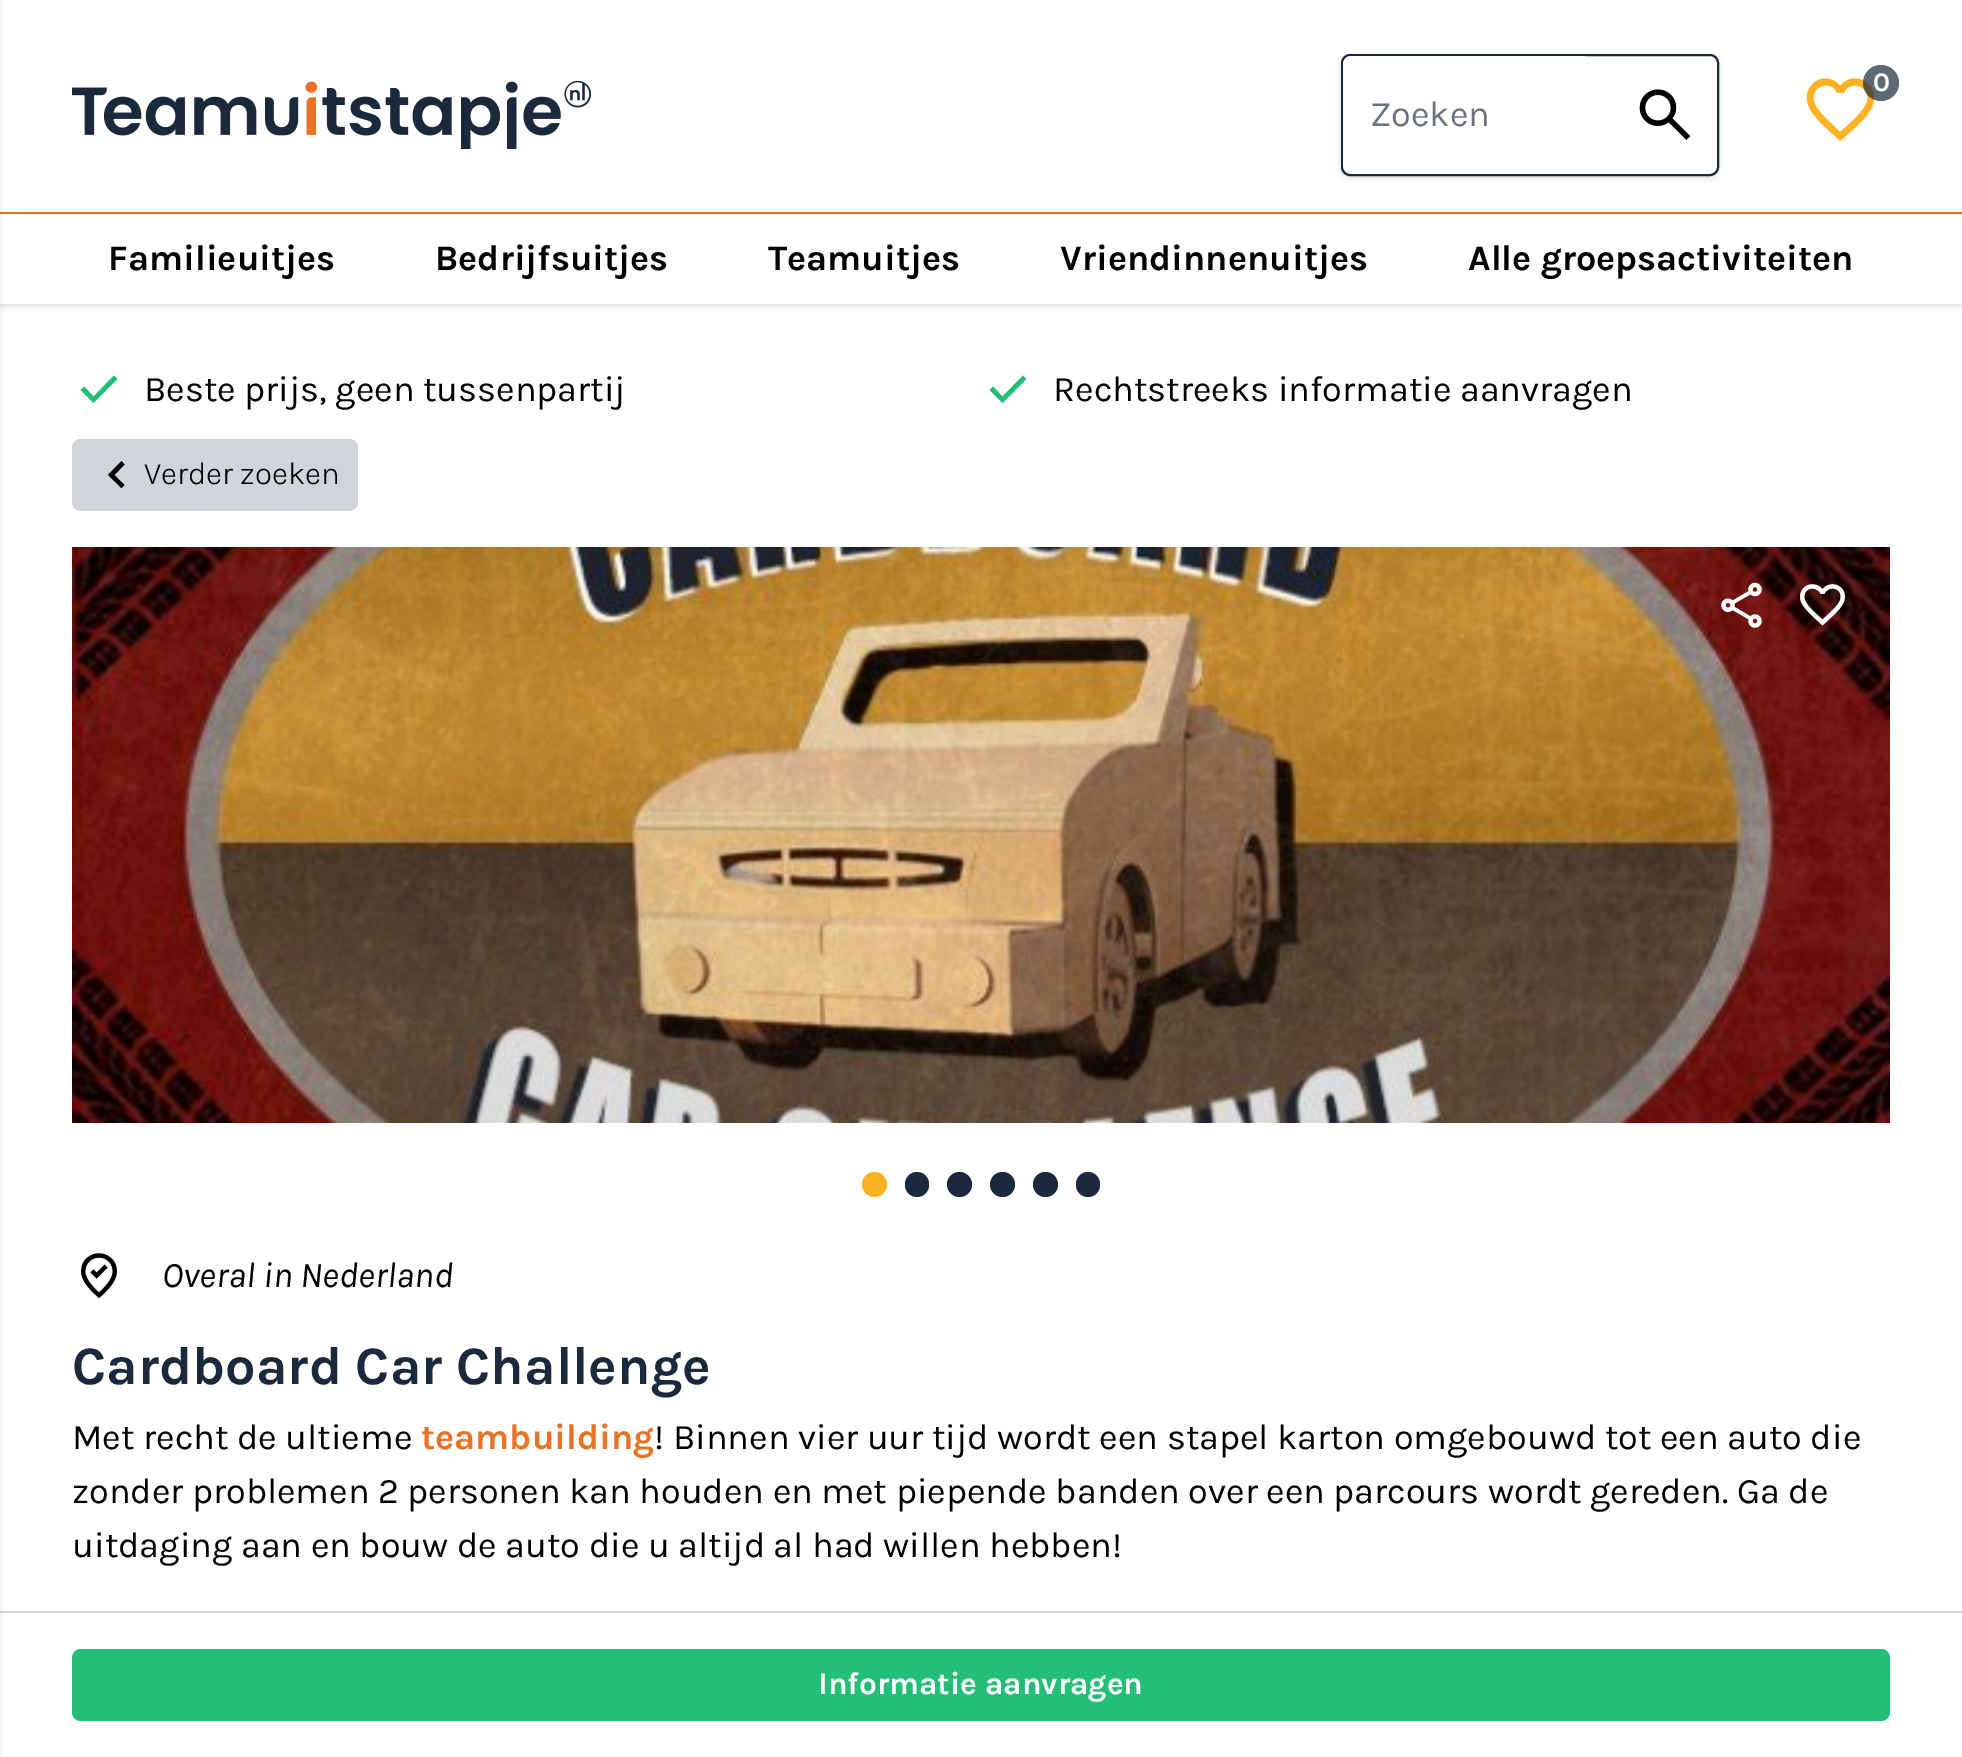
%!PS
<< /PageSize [1962 1757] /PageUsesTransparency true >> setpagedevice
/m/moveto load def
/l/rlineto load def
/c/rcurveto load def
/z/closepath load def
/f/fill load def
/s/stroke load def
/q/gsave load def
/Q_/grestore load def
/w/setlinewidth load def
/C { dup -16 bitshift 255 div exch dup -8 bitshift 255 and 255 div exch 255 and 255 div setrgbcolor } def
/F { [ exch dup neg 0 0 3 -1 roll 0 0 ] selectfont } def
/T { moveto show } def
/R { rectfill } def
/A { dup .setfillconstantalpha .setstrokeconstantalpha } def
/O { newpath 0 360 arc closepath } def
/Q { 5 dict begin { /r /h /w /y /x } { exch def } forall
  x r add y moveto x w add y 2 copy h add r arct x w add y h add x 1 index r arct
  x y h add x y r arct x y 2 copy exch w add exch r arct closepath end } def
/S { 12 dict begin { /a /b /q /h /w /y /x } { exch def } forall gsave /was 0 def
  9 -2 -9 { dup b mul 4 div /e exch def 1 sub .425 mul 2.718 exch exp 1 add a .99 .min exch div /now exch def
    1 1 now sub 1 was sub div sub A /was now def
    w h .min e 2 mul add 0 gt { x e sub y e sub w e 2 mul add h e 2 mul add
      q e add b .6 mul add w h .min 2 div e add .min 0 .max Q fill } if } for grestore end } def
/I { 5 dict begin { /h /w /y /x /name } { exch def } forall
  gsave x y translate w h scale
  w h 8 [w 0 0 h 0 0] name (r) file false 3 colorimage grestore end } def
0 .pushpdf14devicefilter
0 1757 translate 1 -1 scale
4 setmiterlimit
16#FFFFFF C
0 0 1962 1757 R
16#000000 C
2 5 1958 299 0 2 .1 S
0 2 1962 304 0 3.5 .1 S
16#FFFFFF C
0 0 1962 304 R
16#EB7124 C
0 212 1962 2 R
16#D1D5DB C
0 1611 1962 2 R
16#000000 C
-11 2 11 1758 0 3.5 .1 S
(1.rgb) 72 81 520 68 I
16#FFB124 C
1840 141 m -9 -9 -26 -22 -31 -34 c -10 -22 17 -39 31 -21 c 15 -18 42 -1 32 21 c -5 12 -22 25 -32 34 c z 1840 132 m 9 -8 19 -16 25 -26 c 11 -19 -16 -28 -21 -13 c -7 0 l -5 -15 -32 -6 -21 13 c 6 10 16 18 24 26 c z 1840 108 m z f
0.7 A
16#1A293C C
1881 83 18 O f
/Karla-Bold 27 F
1 A
16#FFFFFF C
(0) 1873 91 T
16#000000 C
1343 59 374 117 7 2 .1 S
1341 56 378 122 9 3.5 .1 S
16#FFFFFF C
1342 55 376 120 8 Q q f Q_
16#1A293C C
2 w
s
16#FFFFFF C
1343 56 248 117 9 Q f
/Karla-Regular 36 F
16#6B7280 C
(Zoeken) 1370 126 T
(2.rgb) 1639 89 52 51 I
/Karla-Bold 36 F
16#000000 C
(Familieuitjes) 108 270 T
(Bedrijfsuitjes) 435 270 T
(Teamuitjes) 768 270 T
(Vriendinnenuitjes) 1060 270 T
(Alle groepsactiviteiten) 1468 270 T
16#24BF76 C
93.5 403 m -13 -13 l 3.5 -3.5 l 9.5 10 l 20.5 -21 l 3.5 3.5 l z f
/Karla-Regular 36 F
16#000000 C
(Beste prijs, geen tussenpartij) 144 401 T
16#24BF76 C
1002.5 403 m -13 -13 l 3.5 -3.5 l 9.5 10 l 20.5 -21 l 3.5 3.5 l z f
16#000000 C
(Rechtstreeks informatie aanvragen) 1053 401 T
16#D1D5DB C
72 439 286 72 9 Q f
16#000000 C
121.5 488 m -13.5 -13 l 13.5 -14 l 3 3.5 l -10 10.5 l 10 10 l z f
/Karla-Light 31.5 F
(Verder zoeken) 144 484 T
(3.rgb) 72 547 1818 576 I
(4.rgb) 1721 582 41 46 I
(5.rgb) 1800 584 45 42 I
16#FFB124 C
874.5 1184.5 12.5 O f
16#1A293C C
905 1172 24 25 12 Q f
959.5 1184.5 12.5 O f
1002.5 1184.5 12.5 O f
1045.5 1184.5 12.5 O f
1076 1172 24 25 12 Q f
(6.rgb) 81 1253 36 46 I
/Karla-Italic 36 F
16#000000 C
(Overal in Nederland) 162 1287 T
/Karla-Bold 54 F
16#1A293C C
(Cardboard Car Challenge) 72 1384 T
/Karla-Regular 36 F
16#000000 C
(Met recht de ultieme) 72 1449 T
/Karla-Bold 36 F
16#EB7124 C
(teambuilding) 421 1449 T
/Karla-Regular 36 F
16#000000 C
(! Binnen vier uur tijd wordt een stapel karton omgebouwd tot een auto die) 654 1449 T
(zonder problemen 2 personen kan houden en met piepende banden over een parcours wordt gereden. Ga de) 72 1503 T
(uitdaging aan en bouw de auto die u altijd al had willen hebben!) 72 1557 T
16#24BF76 C
72 1649 1818 72 9 Q f
/Karla-Bold 31.5 F
16#FFFFFF C
(Informatie aanvragen) 818 1694 T
.poppdf14devicefilter showpage
